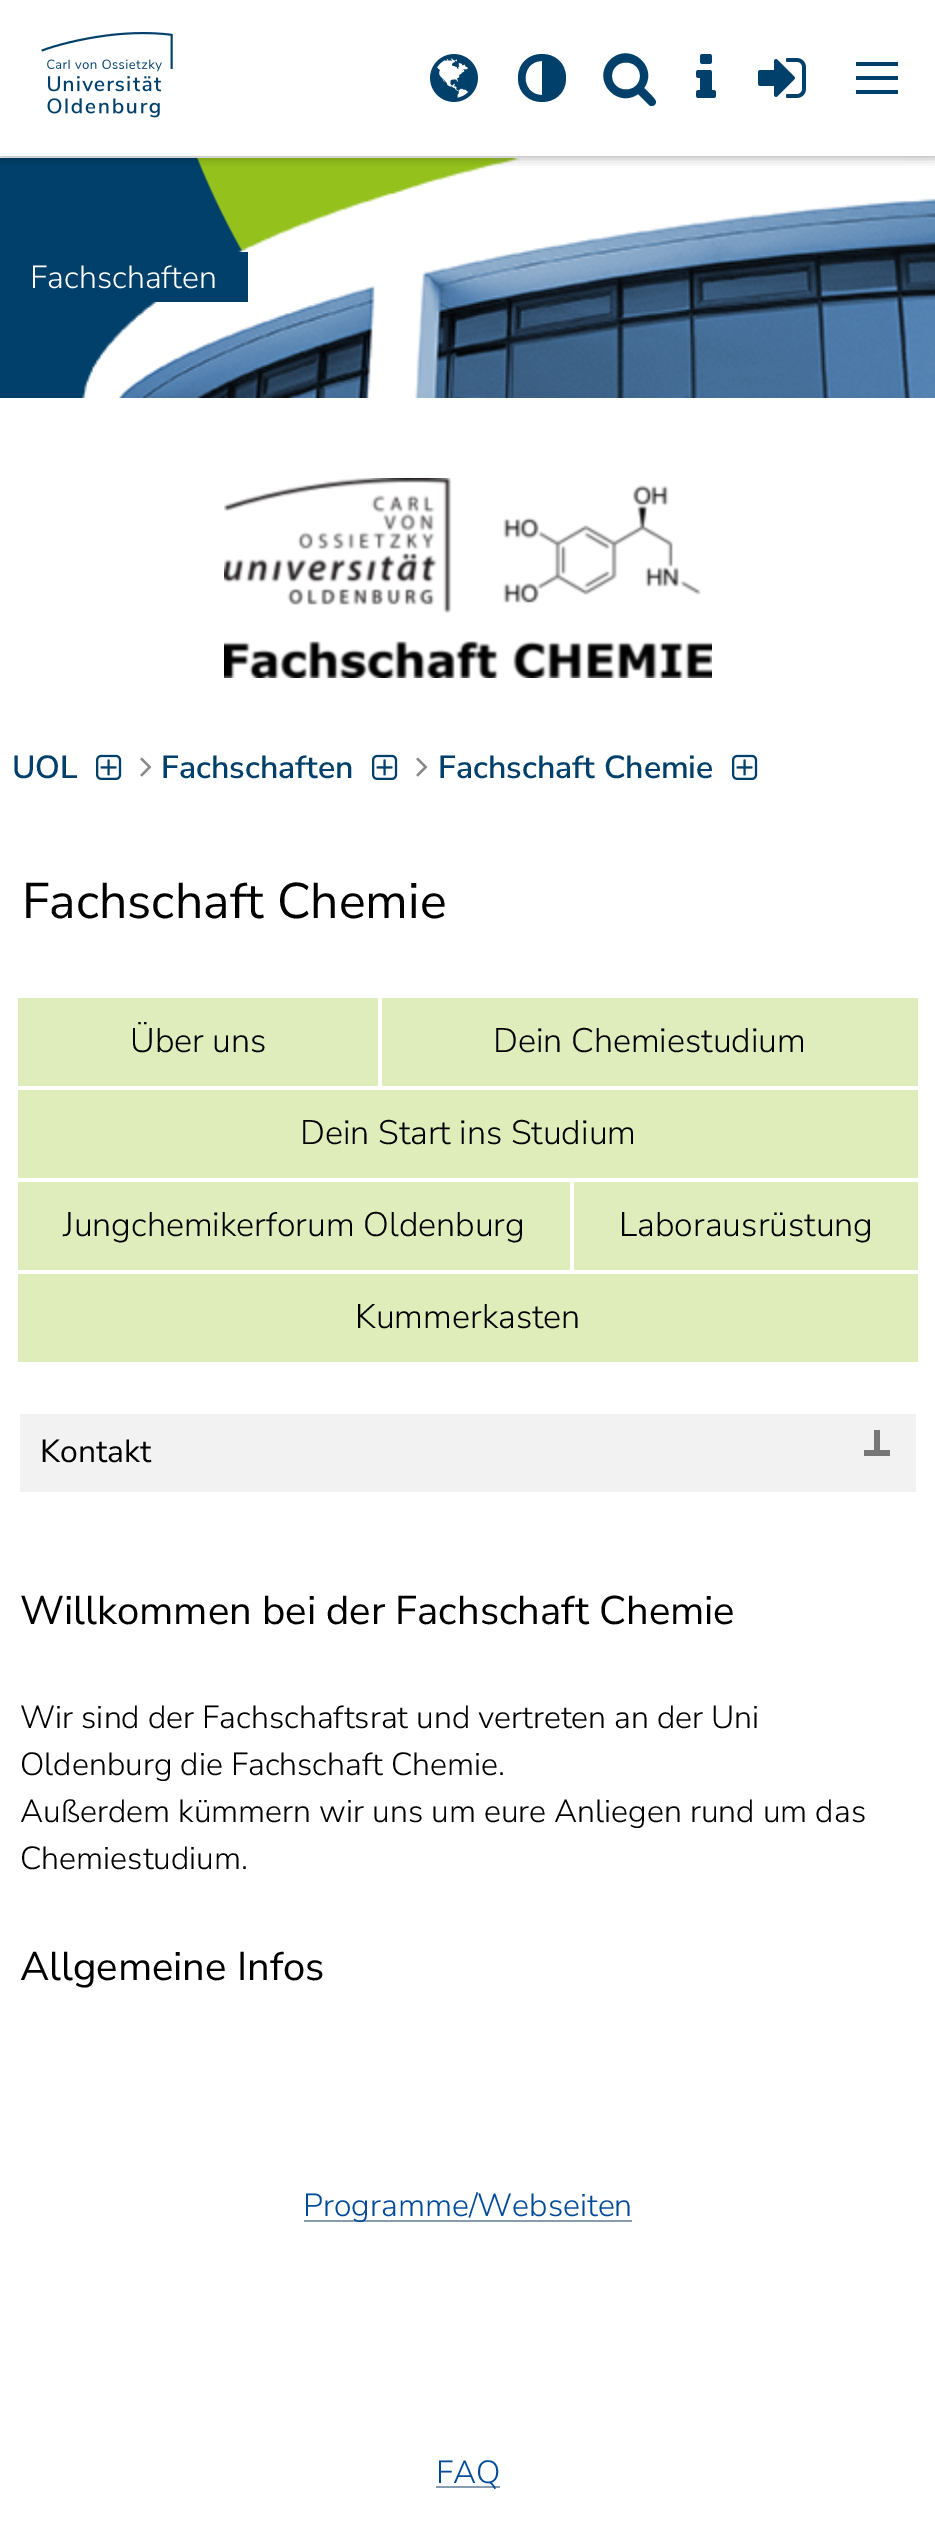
%!PS
<< /PageSize [935 2534] /PageUsesTransparency true >> setpagedevice
/m/moveto load def
/l/rlineto load def
/c/rcurveto load def
/z/closepath load def
/f/fill load def
/q/gsave load def
/Q_/grestore load def
/C { dup -16 bitshift 255 div exch dup -8 bitshift 255 and 255 div exch 255 and 255 div setrgbcolor } def
/F { [ exch dup neg 0 0 3 -1 roll 0 0 ] selectfont } def
/T { moveto show } def
/R { rectfill } def
/A { dup .setfillconstantalpha .setstrokeconstantalpha } def
/Q { 5 dict begin { /r /h /w /y /x } { exch def } forall
  x r add y moveto x w add y 2 copy h add r arct x w add y h add x 1 index r arct
  x y h add x y r arct x y 2 copy exch w add exch r arct closepath end } def
/S { 12 dict begin { /a /b /q /h /w /y /x } { exch def } forall gsave /was 0 def
  9 -2 -9 { dup b mul 4 div /e exch def 1 sub .425 mul 2.718 exch exp 1 add a .99 .min exch div /now exch def
    1 1 now sub 1 was sub div sub A /was now def
    w h .min e 2 mul add 0 gt { x e sub y e sub w e 2 mul add h e 2 mul add
      q e add b .6 mul add w h .min 2 div e add .min 0 .max Q fill } if } for grestore end } def
/I { 5 dict begin { /h /w /y /x /name } { exch def } forall
  gsave x y translate w h scale
  w h 8 [w 0 0 h 0 0] name (r) file false 3 colorimage grestore end } def
0 .pushpdf14devicefilter
0 2534 translate 1 -1 scale
4 setmiterlimit
16#FFFFFF C
0 0 935 2534 R
16#00406B C
0 158 243 240 R
(5.rgb) 82 158 853 240 I
q
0 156 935 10 rectclip
16#000000 C
0 0 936 156 0 6 .4 S
Q_
(1.rgb) 41 32 132 86 I
(2.rgb) 430 54 48 48 I
542 95 m -22 0 -22 -34 0 -34 c z 566 78 m 0 -32 -48 -32 -48 0 c 0 32 48 32 48 0 c z f
640 76 m 0 18 -28 18 -28 0 c 0 -18 28 -18 28 0 c z 656 102 m 0 -3 -9 -11 -12 -14 c 15 -21 -14 -47 -34 -28 c -19 20 7 49 28 34 c 11 11 l 1 1 2 1 3 1 c 2 0 4 -2 4 -4 c z f
(3.rgb) 696 54 20 44 I
(4.rgb) 758 58 48 40 I
856 76 42 4 R
856 62 42 4 R
856 90 42 4 R
153 252 95 50 R
/NunitoSans-Light 32 F
16#FFFFFF C
(Fachschaften) 30 288 T
(6.rgb) 224 478 488 200 I
/NunitoSans-SemiBold 32 F
16#00406B C
(UOL) 12 778 T
(7.rgb) 96 754 26 26 I
(8.rgb) 140 757 12 20 I
(Fachschaften) 161 778 T
(7.rgb) 372 754 26 26 I
(8.rgb) 416 757 12 20 I
(Fachschaft Chemie) 438 778 T
(7.rgb) 732 754 26 26 I
/NunitoSans-Regular 50 F
16#000000 C
(Fachschaft Chemie) 22 918 T
16#DFECBB C
18 998 360 88 R
/NunitoSans-Light 34 F
16#000000 C
(Über uns) 130 1052 T
16#DFECBB C
382 998 536 88 R
16#000000 C
(Dein Chemiestudium) 493 1052 T
16#DFEDBB C
18 1090 900 88 R
16#000000 C
(Dein Start ins Studium) 300 1144 T
16#DFECBB C
18 1182 552 88 R
16#000000 C
(Jungchemikerforum Oldenburg) 63 1236 T
16#DFECBB C
574 1182 344 88 R
16#000000 C
(Laborausrüstung) 619 1236 T
16#DFEDBB C
18 1274 900 88 R
16#000000 C
(Kummerkasten) 355 1328 T
16#F2F2F2 C
20 1414 896 78 R
/NunitoSans-Regular 32 F
16#000000 C
(Kontakt) 40 1462 T
16#777777 C
874 1430 6 26 R
864 1450 26 6 R
/NunitoSans-Regular 40 F
16#000000 C
(Willkommen bei der Fachschaft Chemie) 20 1624 T
/NunitoSans-Light 32 F
(Wir sind der Fachschaftsrat und vertreten an der Uni) 20 1728 T
(Oldenburg die Fachschaft Chemie.) 20 1775 T
(Außerdem kümmern wir uns um eure Anliegen rund um das) 20 1822 T
(Chemiestudium.) 20 1869 T
/NunitoSans-Regular 40 F
(Allgemeine Infos) 20 1980 T
16#879DAF C
304 2220 328 2 R
/NunitoSans-Light 32 F
16#004A97 C
(Programme/Webseiten) 303 2216 T
16#879DAF C
436 2486 64 2 R
16#004A97 C
(FAQ) 436 2483 T
.poppdf14devicefilter showpage
